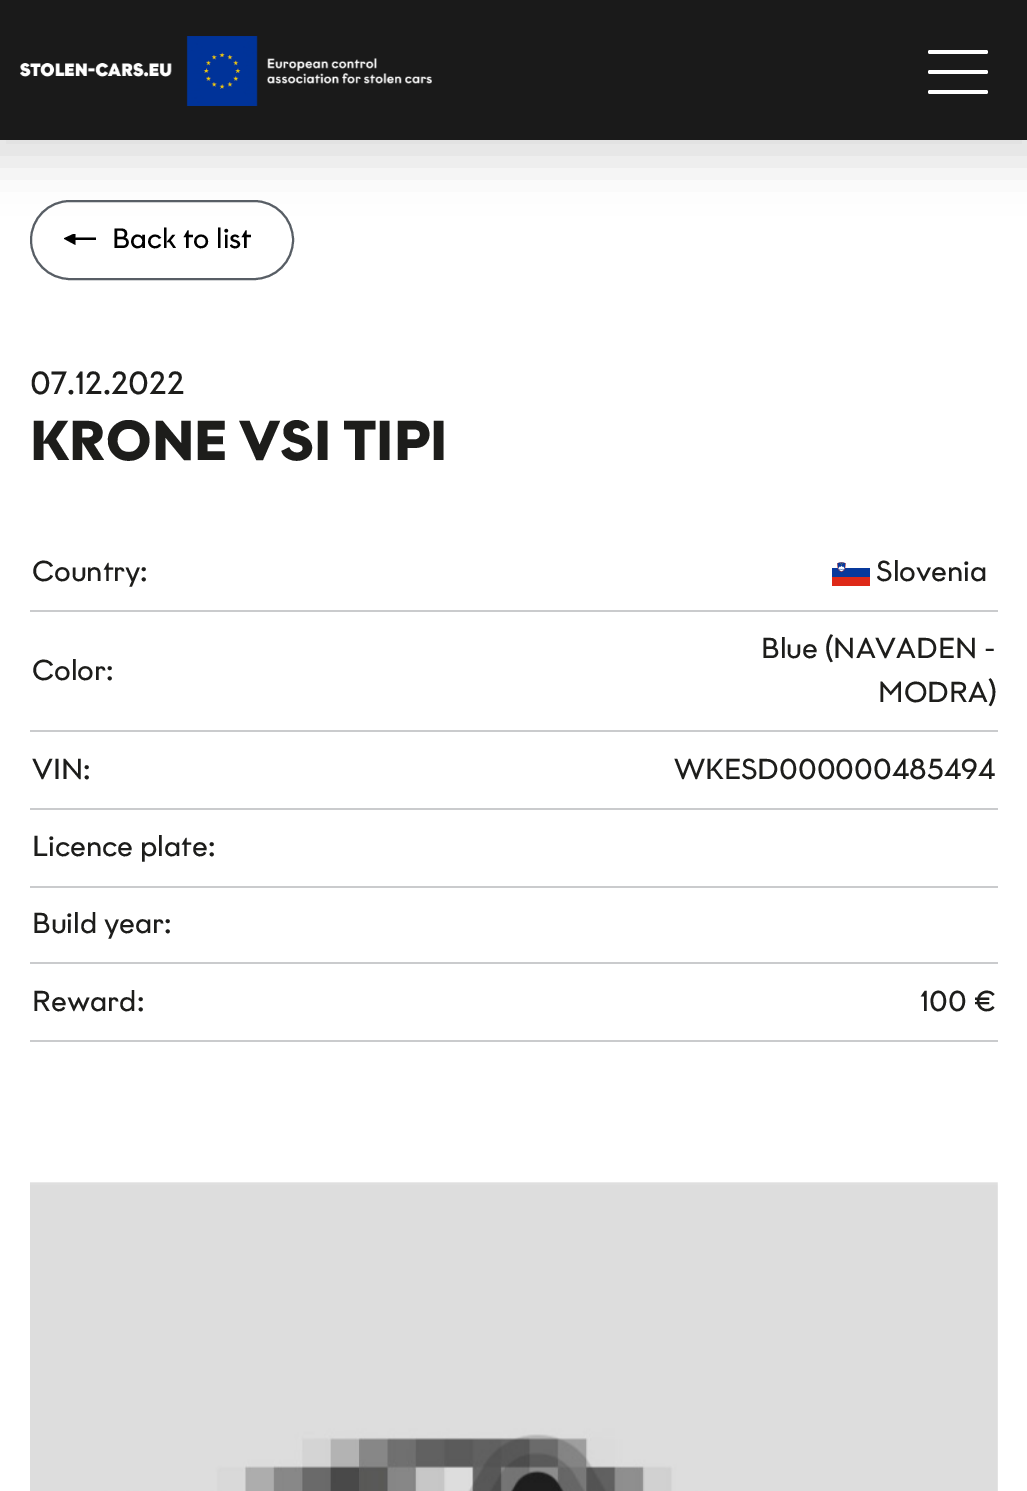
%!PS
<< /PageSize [1027 1491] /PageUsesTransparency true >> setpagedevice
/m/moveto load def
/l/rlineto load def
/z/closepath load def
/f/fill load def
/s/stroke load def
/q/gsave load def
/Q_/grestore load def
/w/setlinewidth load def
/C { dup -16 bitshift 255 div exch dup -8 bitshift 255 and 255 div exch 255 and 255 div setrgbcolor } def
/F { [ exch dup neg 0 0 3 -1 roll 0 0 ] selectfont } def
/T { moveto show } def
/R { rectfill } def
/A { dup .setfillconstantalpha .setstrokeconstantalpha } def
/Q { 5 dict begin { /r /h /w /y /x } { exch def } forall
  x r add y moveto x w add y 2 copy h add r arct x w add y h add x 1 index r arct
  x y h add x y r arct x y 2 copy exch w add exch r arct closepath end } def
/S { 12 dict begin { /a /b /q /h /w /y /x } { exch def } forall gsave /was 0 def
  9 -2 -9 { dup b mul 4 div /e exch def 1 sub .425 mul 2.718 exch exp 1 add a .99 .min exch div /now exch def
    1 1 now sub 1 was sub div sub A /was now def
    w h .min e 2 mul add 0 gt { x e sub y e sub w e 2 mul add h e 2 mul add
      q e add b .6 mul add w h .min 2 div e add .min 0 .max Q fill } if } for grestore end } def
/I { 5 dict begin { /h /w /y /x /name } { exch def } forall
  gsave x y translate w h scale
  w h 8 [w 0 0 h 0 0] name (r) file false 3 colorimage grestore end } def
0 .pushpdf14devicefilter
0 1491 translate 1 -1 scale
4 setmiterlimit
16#FFFFFF C
0 0 1027 1491 R
16#585E65 C
2 w
31 201 262 78 39 Q s
q
64 234 32 12 rectclip
16#000000 C
63.5 238.5 m 12 6.5 l 0 -5 l 20.5 0 l 0 -2.5 l -20.5 0 l 0 -4.5 l z f
Q_
16#000000 C
-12 -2 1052 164 0 24 .13 S
16#1A1A1A C
0 0 1027 140 R
(1.rgb) 20 36 412 70 I
16#FFFFFF C
928 70 60 4 2 Q f
928 50 60 4 2 Q f
928 90 60 4 2 Q f
/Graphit-Regular 28 F
16#000000 C
(Back to list) 112 248 T
/Graphit-Regular 32 F
16#1D1D1B C
(07.12.2022) 30 394 T
/Graphit-Bold 56 F
(KRONE VSI TIPI) 30 460 T
16#CACBCD C
30 610 968 2 R
/Graphit-Regular 28.75 F
16#1D1D1B C
(Country:) 32 581 T
(2.rgb) 832 562 38 24 I
(Slovenia) 876 581 T
16#CACBCD C
30 730 968 2 R
16#1D1D1B C
(Color:) 32 680 T
(Blue \(NAVADEN -) 761 658 T
(MODRA\)) 878 702 T
16#CACBCD C
30 808 968 2 R
16#1D1D1B C
(VIN:) 32 779 T
(WKESD000000485494) 674 779 T
16#CACBCD C
30 886 968 2 R
16#1D1D1B C
(Licence plate:) 32 856 T
16#CACBCD C
30 962 968 2 R
16#1D1D1B C
(Build year:) 32 933 T
16#CACBCD C
30 1040 968 2 R
16#1D1D1B C
(Reward:) 32 1011 T
(100 €) 920 1011 T
(3.rgb) 30 1182 968 309 I
.poppdf14devicefilter showpage
